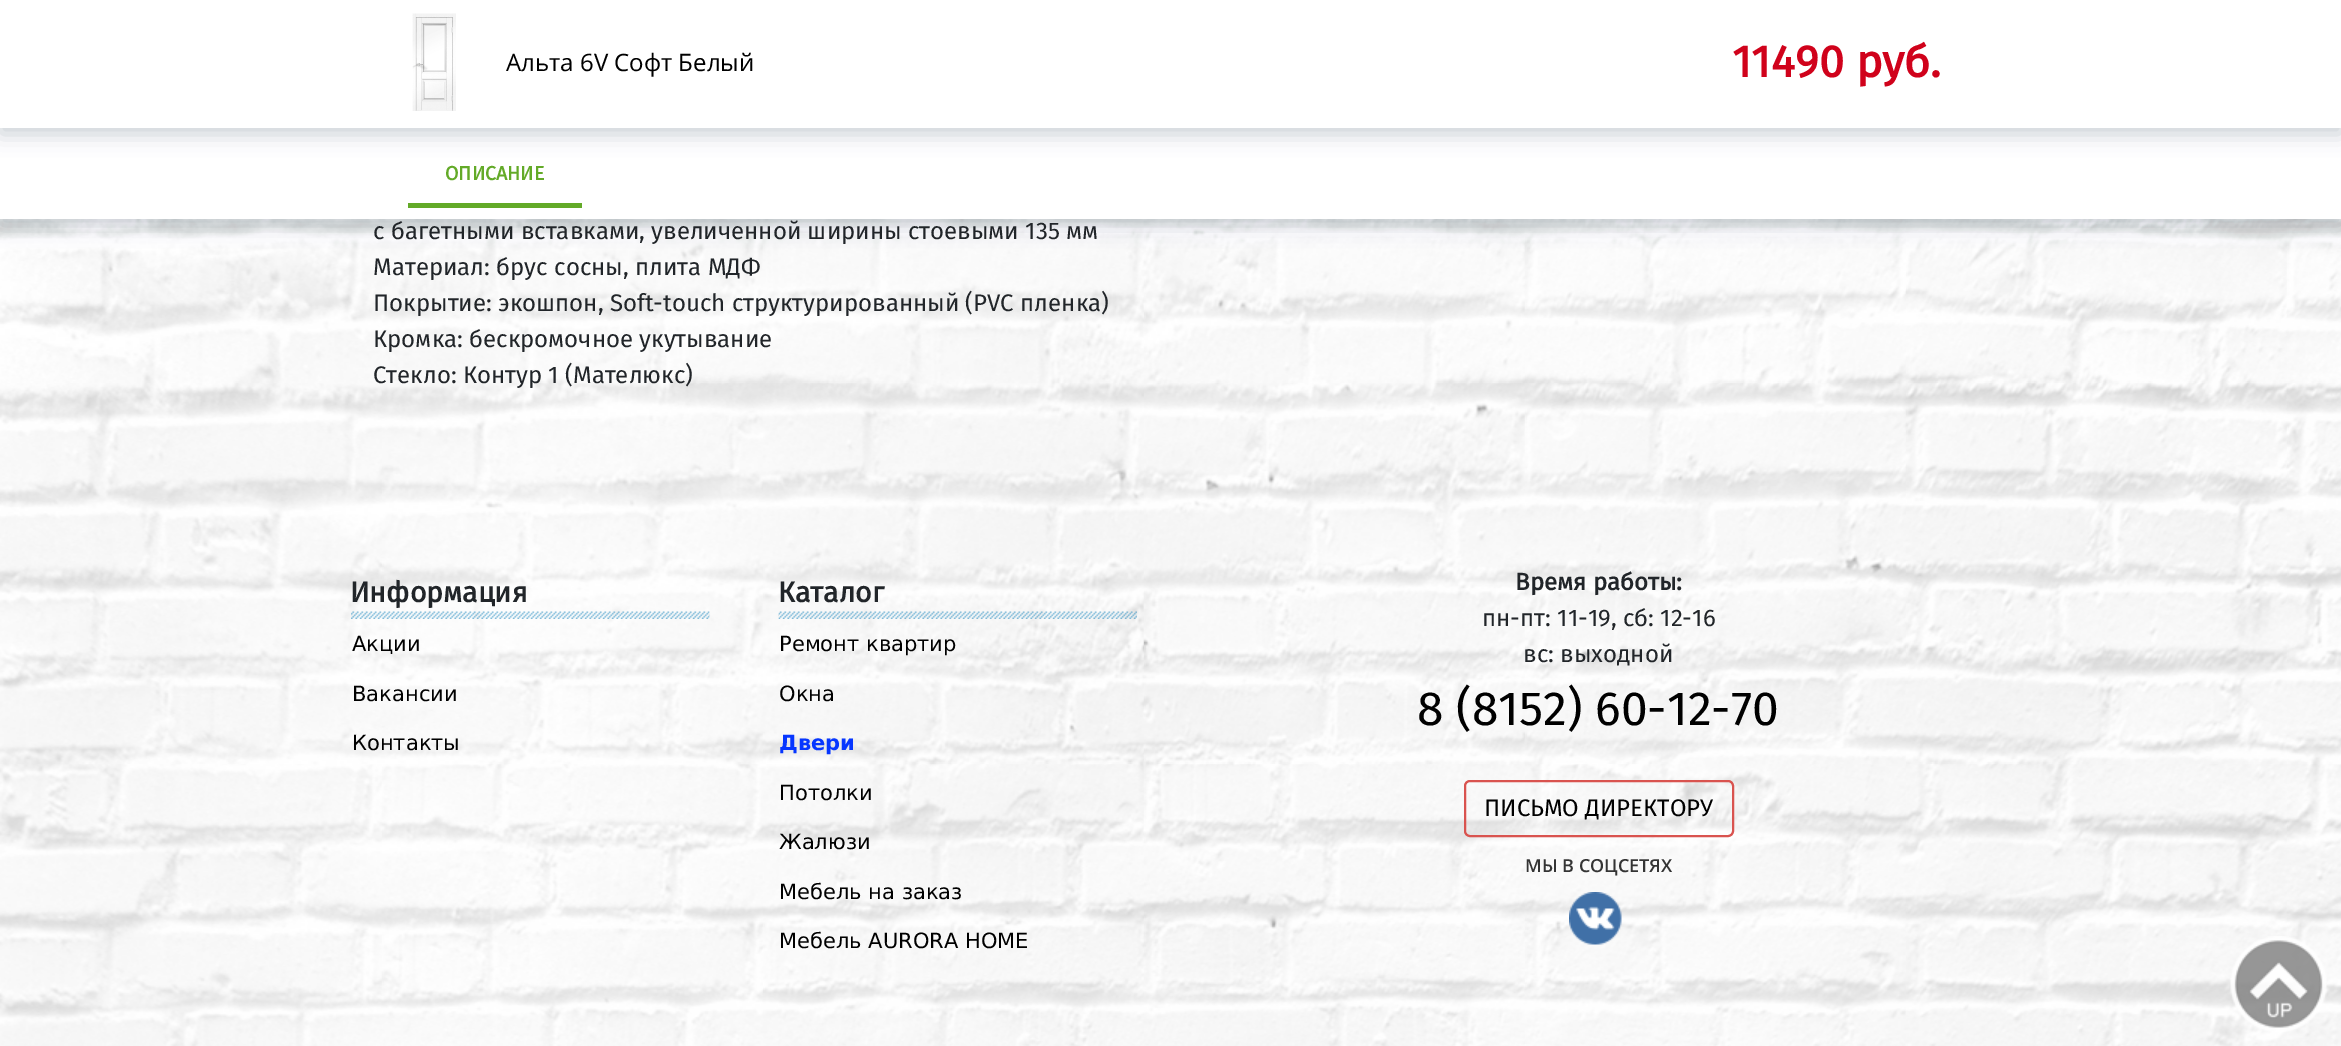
%!PS
<< /PageSize [2341 1046] /PageUsesTransparency true >> setpagedevice
/s/stroke load def
/w/setlinewidth load def
/C { dup -16 bitshift 255 div exch dup -8 bitshift 255 and 255 div exch 255 and 255 div setrgbcolor } def
/F { [ exch dup neg 0 0 3 -1 roll 0 0 ] selectfont } def
/T { moveto show } def
/R { rectfill } def
/A { dup .setfillconstantalpha .setstrokeconstantalpha } def
/Q { 5 dict begin { /r /h /w /y /x } { exch def } forall
  x r add y moveto x w add y 2 copy h add r arct x w add y h add x 1 index r arct
  x y h add x y r arct x y 2 copy exch w add exch r arct closepath end } def
/S { 12 dict begin { /a /b /q /h /w /y /x } { exch def } forall gsave /was 0 def
  9 -2 -9 { dup b mul 4 div /e exch def 1 sub .425 mul 2.718 exch exp 1 add a .99 .min exch div /now exch def
    1 1 now sub 1 was sub div sub A /was now def
    w h .min e 2 mul add 0 gt { x e sub y e sub w e 2 mul add h e 2 mul add
      q e add b .6 mul add w h .min 2 div e add .min 0 .max Q fill } if } for grestore end } def
/I { 5 dict begin { /h /w /y /x /name } { exch def } forall
  gsave x y translate w h scale
  w h 8 [w 0 0 h 0 0] name (r) file false 3 colorimage grestore end } def
0 .pushpdf14devicefilter
0 1046 translate 1 -1 scale
4 setmiterlimit
16#FFFFFF C
0 0 2341 1046 R
(1.rgb) 0 219 2341 827 I
16#20364A C
0 134 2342 91 0 10.5 .23 S
16#FFFFFF C
0 128 2341 91 R
16#20364A C
0 6 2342 128 0 10.5 .23 S
16#FFFFFF C
0 0 2341 128 R
(2.rgb) 412 13 44 98 I
/OpenSans-Regular 24 F
16#000000 C
(Альта 6V Софт Белый) 506 71 T
/FiraSans-Bold 45 F
16#D0021B C
(11490 руб.) 1732 77 T
/FiraSans-Bold 19.5 F
16#63AA28 C
(ОПИСАНИЕ) 445 180 T
408 203 174 5 R
/FiraSans-Regular 24 F
16#212529 C
(с багетными вставками, увеличенной ширины стоевыми 135 мм) 373 239 T
(Материал: брус сосны, плита МДФ) 373 275 T
(Покрытие: экошпон, Soft-touch структурированный \(PVC пленка\)) 373 311 T
(Кромка: бескромочное укутывание) 373 347 T
(Стекло: Контур 1 \(Мателюкс\)) 373 383 T
(3.rgb) 351 611 359 8 I
/FiraSans-Bold 28.5 F
(Информация) 350 602 T
/DejaVuSans-Regular 21 F
16#000000 C
(Акции) 352 651 T
(Вакансии) 352 701 T
(Контакты) 352 750 T
(4.rgb) 778 611 359 8 I
/FiraSans-Bold 28.5 F
16#212529 C
(Каталог) 778 602 T
/DejaVuSans-Regular 21 F
16#000000 C
(Ремонт квартир) 779 651 T
(Окна) 779 701 T
/DejaVuSans-Bold 21 F
16#0636FF C
(Двери) 779 750 T
/DejaVuSans-Regular 21 F
16#000000 C
(Потолки) 779 800 T
(Жалюзи) 779 849 T
(Мебель на заказ) 779 899 T
(Мебель AURORA HOME) 779 948 T
/FiraSans-Bold 24 F
16#212529 C
(Время работы:) 1515 590 T
/FiraSans-Regular 24 F
(пн-пт: 11-19, сб: 12-16) 1482 626 T
(вс: выходной) 1523 662 T
/FiraSans-Regular 48 F
16#000000 C
(8 \(8152\) 60-12-70) 1417 725 T
16#D9534F C
2 w
1465 781 268 55 5 Q s
/FiraSans-Regular 24 F
16#000000 C
(ПИСЬМО ДИРЕКТОРУ) 1484 816 T
/OpenSans-SemiBold 18 F
16#343434 C
(МЫ В СОЦСЕТЯХ) 1525 872 T
(5.rgb) 1569 892 53 53 I
(6.rgb) 2230 936 97 96 I
.poppdf14devicefilter showpage
